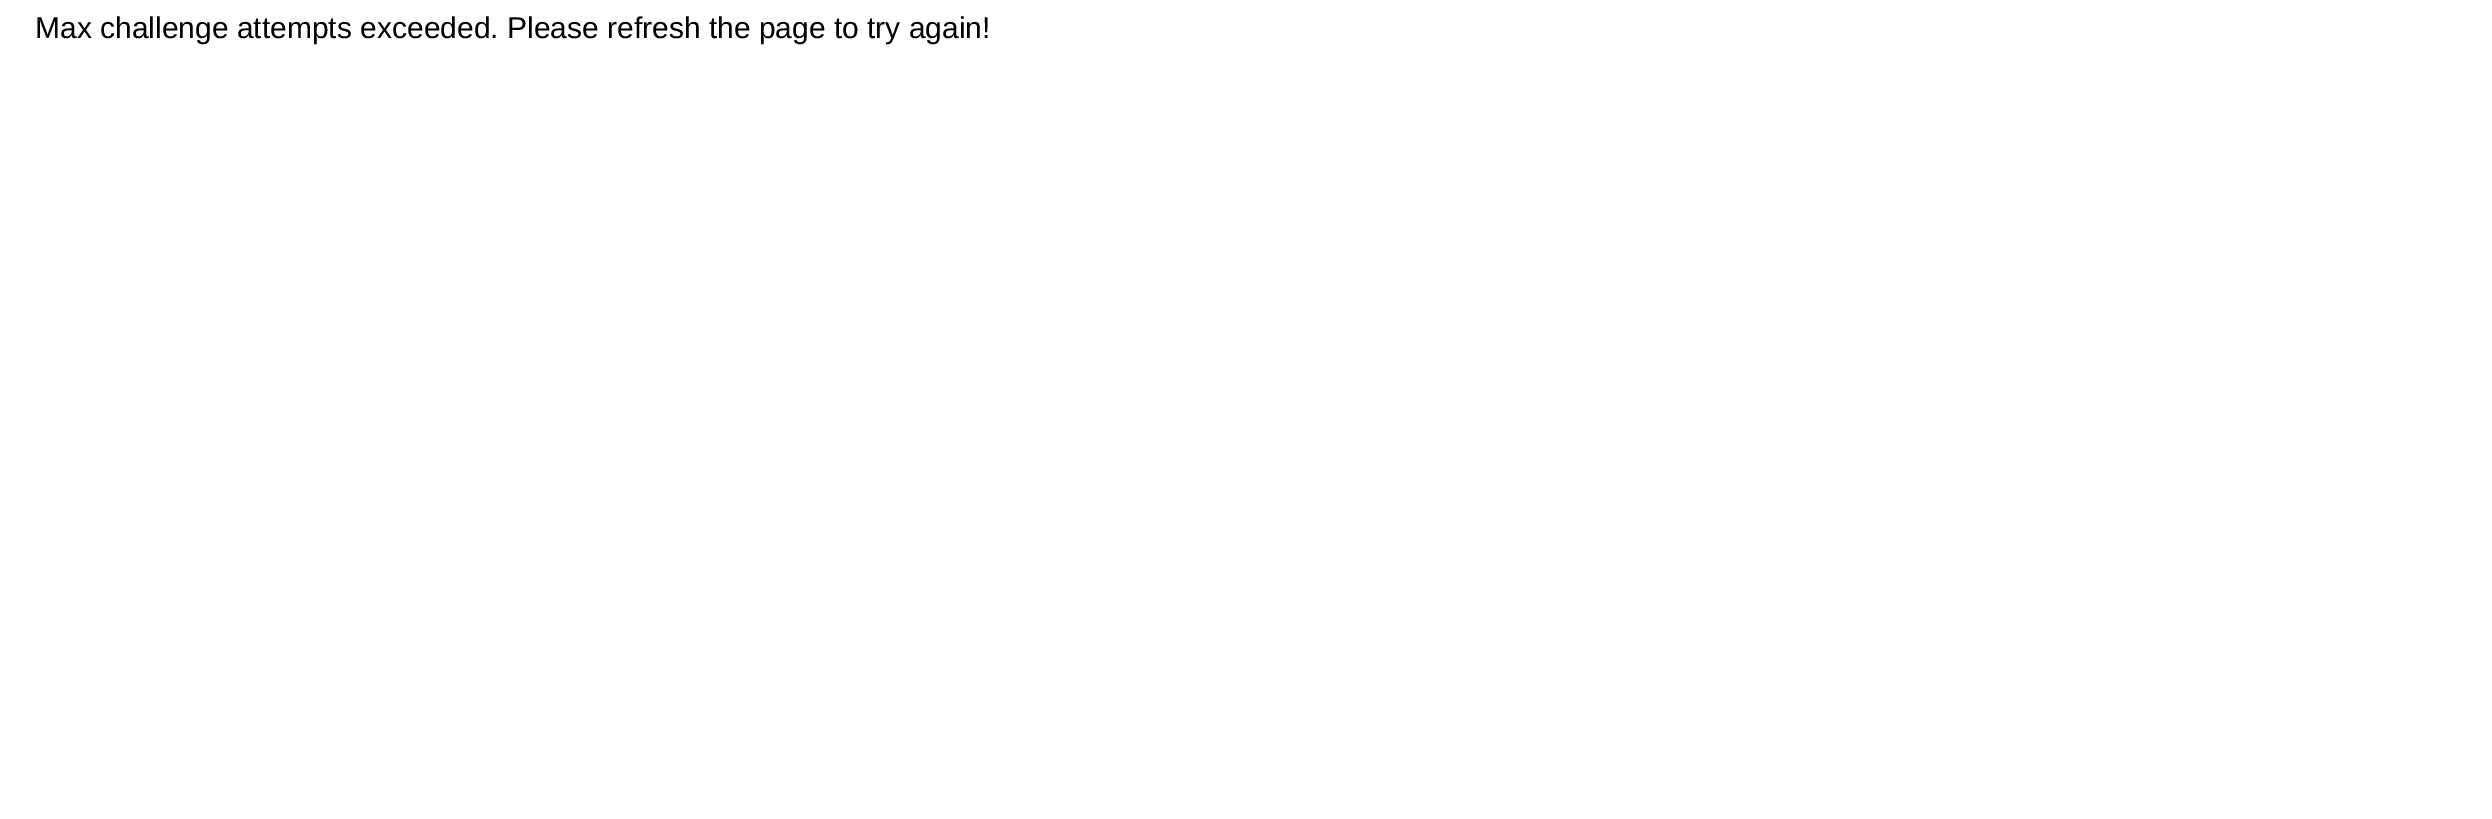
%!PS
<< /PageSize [2492 819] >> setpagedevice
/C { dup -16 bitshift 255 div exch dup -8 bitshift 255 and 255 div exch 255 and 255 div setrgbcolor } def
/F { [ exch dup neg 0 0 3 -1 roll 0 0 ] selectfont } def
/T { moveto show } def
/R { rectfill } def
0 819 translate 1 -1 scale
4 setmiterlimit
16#FFFFFF C
0 0 2492 819 R
/LiberationSans-Regular 30 F
16#000000 C
(Max challenge attempts exceeded. Please refresh the page to try again!) 35 38 T
showpage
